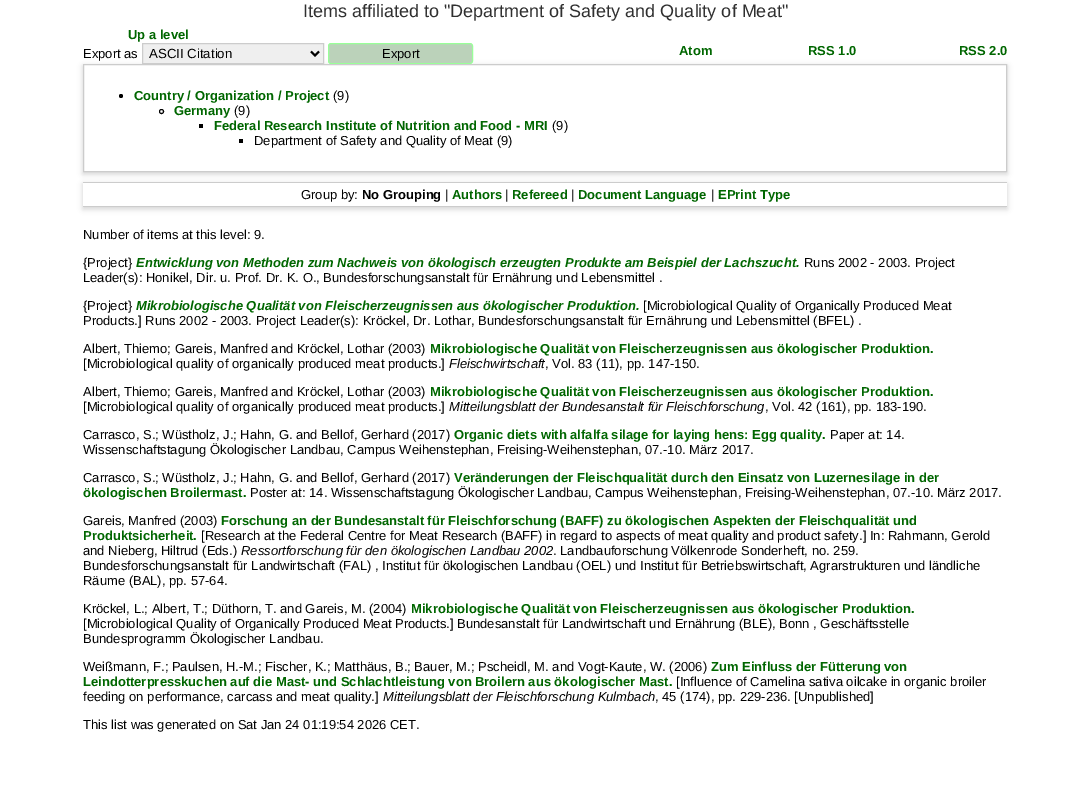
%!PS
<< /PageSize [1080 787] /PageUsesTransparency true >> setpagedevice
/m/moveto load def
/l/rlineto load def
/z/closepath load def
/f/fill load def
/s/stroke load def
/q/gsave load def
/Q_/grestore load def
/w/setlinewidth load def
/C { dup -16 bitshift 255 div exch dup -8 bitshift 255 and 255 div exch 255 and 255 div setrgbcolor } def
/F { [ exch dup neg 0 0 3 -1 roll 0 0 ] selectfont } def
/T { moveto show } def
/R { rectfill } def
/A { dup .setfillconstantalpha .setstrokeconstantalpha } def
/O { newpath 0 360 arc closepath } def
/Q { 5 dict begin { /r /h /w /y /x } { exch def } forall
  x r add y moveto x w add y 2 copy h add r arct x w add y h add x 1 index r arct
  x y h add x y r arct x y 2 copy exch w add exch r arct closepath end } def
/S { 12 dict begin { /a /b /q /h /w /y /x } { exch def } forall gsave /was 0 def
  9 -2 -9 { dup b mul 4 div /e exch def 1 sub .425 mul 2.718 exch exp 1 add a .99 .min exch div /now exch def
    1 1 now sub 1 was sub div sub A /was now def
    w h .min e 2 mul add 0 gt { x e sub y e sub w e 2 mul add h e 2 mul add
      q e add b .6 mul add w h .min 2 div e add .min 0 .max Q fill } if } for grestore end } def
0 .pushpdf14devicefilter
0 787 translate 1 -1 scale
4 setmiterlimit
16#FFFFFF C
0 0 1080 787 R
/LiberationSans-Regular 18 F
16#303030 C
(Items affiliated to "Department of Safety and Quality of Meat") 303 17 T
/LiberationSans-Bold 13 F
16#006600 C
(Up a level) 128 39 T
q
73 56 m 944 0 l 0 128 l -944 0 l z 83 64 m 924 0 l 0 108 l -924 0 l z eoclip newpath
16#646464 C
83 66 924 108 0 3 .3 S
Q_
/LiberationSans-Regular 13 F
16#000000 C
(Export as) 83 58 T
16#EFEFEF C
142.5 43.5 m 181 0 l 0 20 l -181 0 l z q f Q_
16#CCCCCC C
s
16#000000 C
2 w
311 51.5 m 4 4 l 4 -4 l s
/LiberationSans-Regular 13.25 F
(ASCII Citation) 149 58 T
16#BBD2BA C
328.5 43.5 144 20 2.5 Q q f Q_
16#99FF99 C
1 w
s
/LiberationSans-Regular 13 F
16#000000 C
(Export) 382 58 T
/LiberationSans-Bold 13 F
16#006600 C
(Atom) 679 55 T
(RSS 1.0) 808 55 T
(RSS 2.0) 959 55 T
16#CCCCCC C
83.5 64.5 923 107 rectstroke
16#000000 C
121 96 2 O f
16#006600 C
(Country / Organization / Project) 134 100 T
/LiberationSans-Regular 13 F
16#000000 C
(\(9\)) 333 100 T
161.5 111.5 2 O s
/LiberationSans-Bold 13 F
16#006600 C
(Germany) 174 115 T
/LiberationSans-Regular 13 F
16#000000 C
(\(9\)) 234 115 T
199 124 4 4 R
/LiberationSans-Bold 13 F
16#006600 C
(Federal Research Institute of Nutrition and Food - MRI) 214 130 T
/LiberationSans-Regular 13 F
16#000000 C
(\(9\)) 552 130 T
239 139 4 4 R
(Department of Safety and Quality of Meat \(9\)) 254 145 T
q
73 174 m 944 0 l 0 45 l -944 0 l z 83 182 m 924 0 l 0 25 l -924 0 l z eoclip newpath
16#646464 C
83 184 924 25 0 3 .3 S
Q_
16#CCCCCC C
83 182 924 1 R
83 206 924 1 R
16#000000 C
(Group by:) 301 199 T
/LiberationSans-Bold 13 F
(No Grouping) 362 199 T
/LiberationSans-Regular 13 F
(|) 445 199 T
/LiberationSans-Bold 13 F
16#006600 C
(Authors) 452 199 T
/LiberationSans-Regular 13 F
16#000000 C
(|) 505 199 T
/LiberationSans-Bold 13 F
16#006600 C
(Refereed) 512 199 T
/LiberationSans-Regular 13 F
16#000000 C
(|) 571 199 T
/LiberationSans-Bold 13 F
16#006600 C
(Document Language) 578 199 T
/LiberationSans-Regular 13 F
16#000000 C
(|) 711 199 T
/LiberationSans-Bold 13 F
16#006600 C
(EPrint Type) 718 199 T
/LiberationSans-Regular 13 F
16#000000 C
(Number of items at this level: 9.) 83 239 T
({Project}) 83 267 T
/LiberationSans-BoldItalic 13 F
16#006600 C
(Entwicklung von Methoden zum Nachweis von ökologisch erzeugten Produkte am Beispiel der Lachszucht.) 136 267 T
/LiberationSans-Regular 13 F
16#000000 C
(Runs 2002 - 2003. Project) 804 267 T
(Leader\(s\): Honikel, Dir. u. Prof. Dr. K. O., Bundesforschungsanstalt für Ernährung und Lebensmittel .) 83 282 T
({Project}) 83 310 T
/LiberationSans-BoldItalic 13 F
16#006600 C
(Mikrobiologische Qualität von Fleischerzeugnissen aus ökologischer Produktion.) 136 310 T
/LiberationSans-Regular 13 F
16#000000 C
([Microbiological Quality of Organically Produced Meat) 643 310 T
(Products.] Runs 2002 - 2003. Project Leader\(s\): Kröckel, Dr. Lothar, Bundesforschungsanstalt für Ernährung und Lebensmittel \(BFEL\) .) 83 325 T
(Albert, Thiemo; Gareis, Manfred and Kröckel, Lothar \(2003\)) 83 353 T
/LiberationSans-Bold 13 F
16#006600 C
(Mikrobiologische Qualität von Fleischerzeugnissen aus ökologischer Produktion.) 430 353 T
/LiberationSans-Regular 13 F
16#000000 C
([Microbiological quality of organically produced meat products.]) 83 368 T
/LiberationSans-Italic 13 F
(Fleischwirtschaft) 449 368 T
/LiberationSans-Regular 13 F
(, Vol. 83 \(11\), pp. 147-150.) 545 368 T
(Albert, Thiemo; Gareis, Manfred and Kröckel, Lothar \(2003\)) 83 396 T
/LiberationSans-Bold 13 F
16#006600 C
(Mikrobiologische Qualität von Fleischerzeugnissen aus ökologischer Produktion.) 430 396 T
/LiberationSans-Regular 13 F
16#000000 C
([Microbiological quality of organically produced meat products.]) 83 411 T
/LiberationSans-Italic 13 F
(Mitteilungsblatt der Bundesanstalt für Fleischforschung) 449 411 T
/LiberationSans-Regular 13 F
(, Vol. 42 \(161\), pp. 183-190.) 765 411 T
(Carrasco, S.; Wüstholz, J.; Hahn, G. and Bellof, Gerhard \(2017\)) 83 439 T
/LiberationSans-Bold 13 F
16#006600 C
(Organic diets with alfalfa silage for laying hens: Egg quality.) 454 439 T
/LiberationSans-Regular 13 F
16#000000 C
(Paper at: 14.) 830 439 T
(Wissenschaftstagung Ökologischer Landbau, Campus Weihenstephan, Freising-Weihenstephan, 07.-10. März 2017.) 83 454 T
(Carrasco, S.; Wüstholz, J.; Hahn, G. and Bellof, Gerhard \(2017\)) 83 482 T
/LiberationSans-Bold 13 F
16#006600 C
(Veränderungen der Fleischqualität durch den Einsatz von Luzernesilage in der) 454 482 T
(ökologischen Broilermast.) 83 497 T
/LiberationSans-Regular 13 F
16#000000 C
(Poster at: 14. Wissenschaftstagung Ökologischer Landbau, Campus Weihenstephan, Freising-Weihenstephan, 07.-10. März 2017.) 250 497 T
(Gareis, Manfred \(2003\)) 83 525 T
/LiberationSans-Bold 13 F
16#006600 C
(Forschung an der Bundesanstalt für Fleischforschung \(BAFF\) zu ökologischen Aspekten der Fleischqualität und) 221 525 T
(Produktsicherheit.) 83 540 T
/LiberationSans-Regular 13 F
16#000000 C
([Research at the Federal Centre for Meat Research \(BAFF\) in regard to aspects of meat quality and product safety.] In: Rahmann, Gerold) 201 540 T
(and Nieberg, Hiltrud \(Eds.\)) 83 555 T
/LiberationSans-Italic 13 F
(Ressortforschung für den ökologischen Landbau 2002) 241 555 T
/LiberationSans-Regular 13 F
(. Landbauforschung Völkenrode Sonderheft, no. 259.) 553 555 T
(Bundesforschungsanstalt für Landwirtschaft \(FAL\) , Institut für ökologischen Landbau \(OEL\) und Institut für Betriebswirtschaft, Agrarstrukturen und ländliche) 83 570 T
(Räume \(BAL\), pp. 57-64.) 83 585 T
(Kröckel, L.; Albert, T.; Düthorn, T. and Gareis, M. \(2004\)) 83 613 T
/LiberationSans-Bold 13 F
16#006600 C
(Mikrobiologische Qualität von Fleischerzeugnissen aus ökologischer Produktion.) 411 613 T
/LiberationSans-Regular 13 F
16#000000 C
([Microbiological Quality of Organically Produced Meat Products.] Bundesanstalt für Landwirtschaft und Ernährung \(BLE\), Bonn , Geschäftsstelle) 83 628 T
(Bundesprogramm Ökologischer Landbau.) 83 643 T
(Weißmann, F.; Paulsen, H.-M.; Fischer, K.; Matthäus, B.; Bauer, M.; Pscheidl, M. and Vogt-Kaute, W. \(2006\)) 83 671 T
/LiberationSans-Bold 13 F
16#006600 C
(Zum Einfluss der Fütterung von) 711 671 T
(Leindotterpresskuchen auf die Mast- und Schlachtleistung von Broilern aus ökologischer Mast.) 83 686 T
/LiberationSans-Regular 13 F
16#000000 C
([Influence of Camelina sativa oilcake in organic broiler) 676 686 T
(feeding on performance, carcass and meat quality.]) 83 701 T
/LiberationSans-Italic 13 F
(Mitteilungsblatt der Fleischforschung Kulmbach) 383 701 T
/LiberationSans-Regular 13 F
(, 45 \(174\), pp. 229-236. [Unpublished]) 655 701 T
(This list was generated on Sat Jan 24 01:19:54 2026 CET.) 83 729 T
.poppdf14devicefilter showpage
